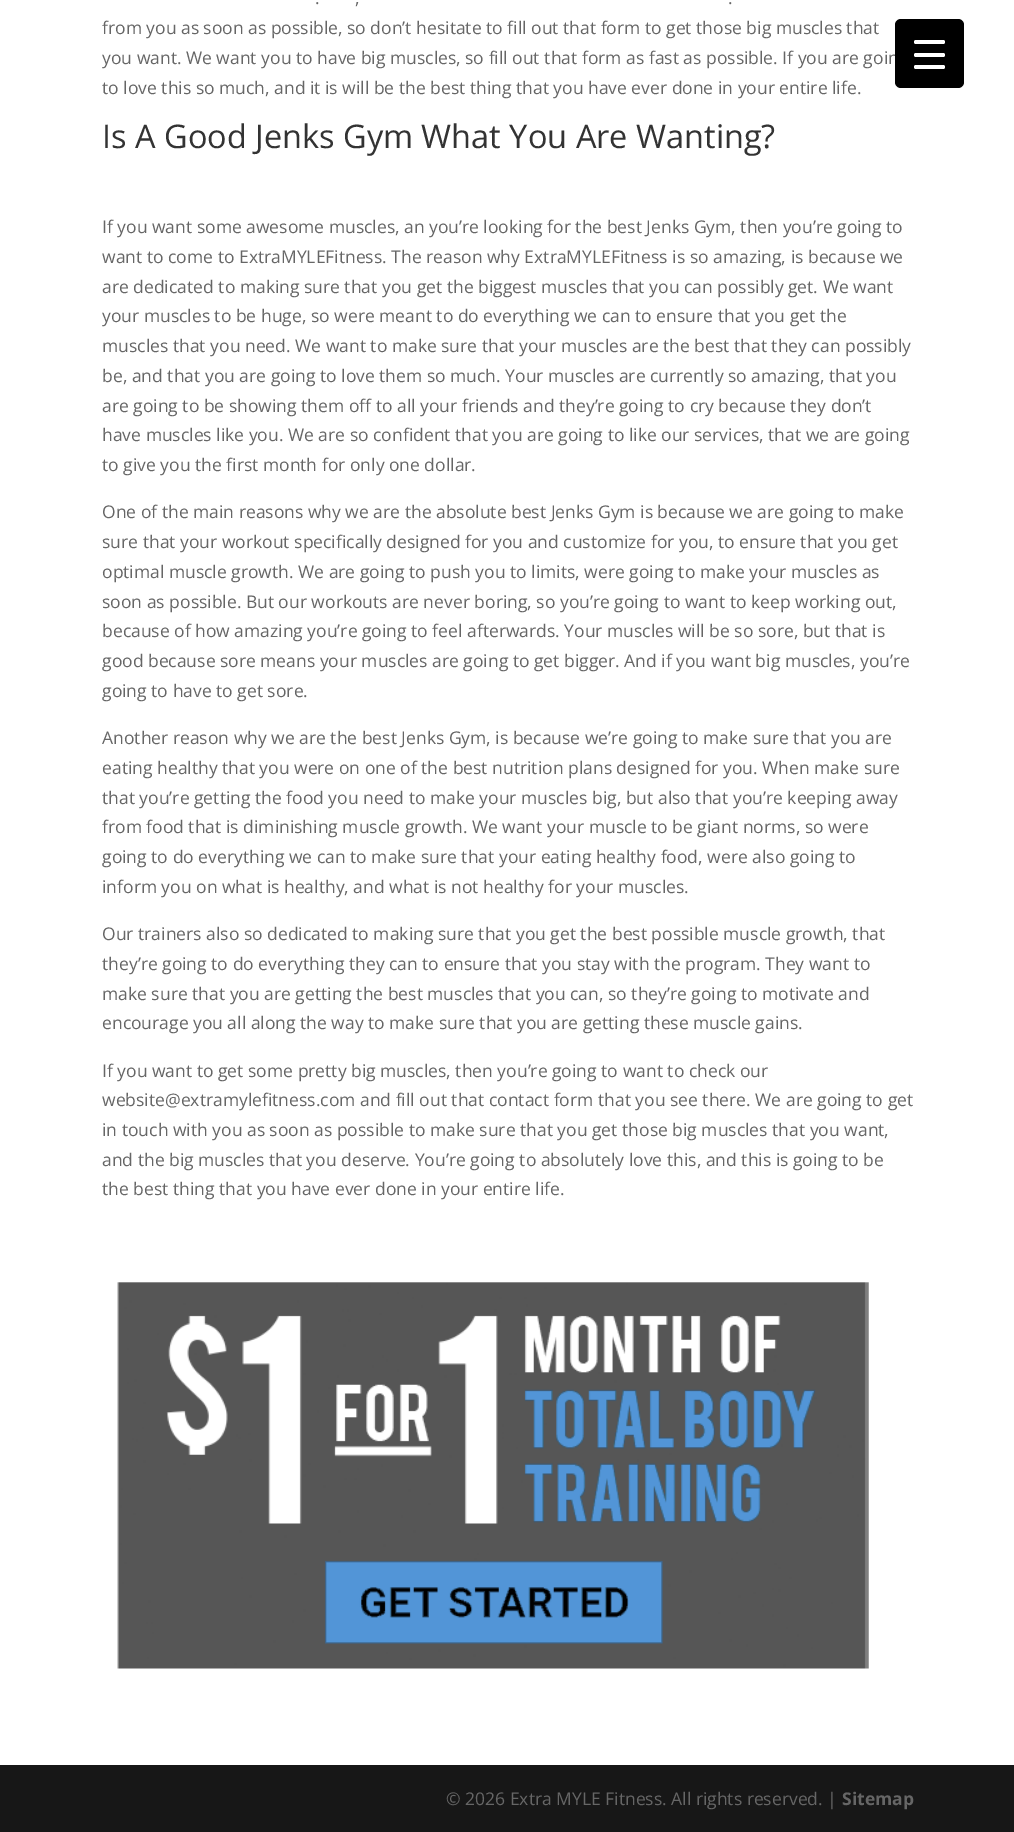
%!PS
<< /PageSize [1014 1832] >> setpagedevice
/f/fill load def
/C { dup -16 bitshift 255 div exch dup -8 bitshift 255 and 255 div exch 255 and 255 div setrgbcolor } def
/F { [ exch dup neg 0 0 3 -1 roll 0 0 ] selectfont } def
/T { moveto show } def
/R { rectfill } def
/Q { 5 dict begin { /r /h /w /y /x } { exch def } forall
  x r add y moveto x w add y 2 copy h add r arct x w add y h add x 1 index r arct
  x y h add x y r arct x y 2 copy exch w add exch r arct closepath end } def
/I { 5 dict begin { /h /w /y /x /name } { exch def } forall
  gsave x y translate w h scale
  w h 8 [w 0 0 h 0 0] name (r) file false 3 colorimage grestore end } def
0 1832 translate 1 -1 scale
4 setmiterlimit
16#FFFFFF C
0 0 1014 1832 R
/OpenSans-Regular 17.5 F
16#666666 C
(.) 315 4 T
(,) 355 4 T
(.) 728 4 T
(from you as soon as possible, so don’t hesitate to fill out that form to get those big muscles that) 102 34 T
(you want. We want you to have big muscles, so fill out that form as fast as possible. If you are goin) 102 64 T
(to love this so much, and it is will be the best thing that you have ever done in your entire life.) 102 94 T
/OpenSans-Regular 32.5 F
16#333333 C
(Is A Good Jenks Gym What You Are Wanting?) 102 148 T
/OpenSans-Regular 17.5 F
16#666666 C
(If you want some awesome muscles, an you’re looking for the best Jenks Gym, then you’re going to) 102 233 T
(want to come to ExtraMYLEFitness. The reason why ExtraMYLEFitness is so amazing, is because we) 102 263 T
(are dedicated to making sure that you get the biggest muscles that you can possibly get. We want) 102 293 T
(your muscles to be huge, so were meant to do everything we can to ensure that you get the) 102 322 T
(muscles that you need. We want to make sure that your muscles are the best that they can possibly) 102 352 T
(be, and that you are going to love them so much. Your muscles are currently so amazing, that you) 102 382 T
(are going to be showing them off to all your friends and they’re going to cry because they don’t) 102 412 T
(have muscles like you. We are so confident that you are going to like our services, that we are going) 102 441 T
(to give you the first month for only one dollar.) 102 471 T
(One of the main reasons why we are the absolute best Jenks Gym is because we are going to make) 102 518 T
(sure that your workout specifically designed for you and customize for you, to ensure that you get) 102 548 T
(optimal muscle growth. We are going to push you to limits, were going to make your muscles as) 102 578 T
(soon as possible. But our workouts are never boring, so you’re going to want to keep working out,) 102 608 T
(because of how amazing you’re going to feel afterwards. Your muscles will be so sore, but that is) 102 637 T
(good because sore means your muscles are going to get bigger. And if you want big muscles, you’re) 102 667 T
(going to have to get sore.) 102 697 T
(Another reason why we are the best Jenks Gym, is because we’re going to make sure that you are) 102 744 T
(eating healthy that you were on one of the best nutrition plans designed for you. When make sure) 102 774 T
(that you’re getting the food you need to make your muscles big, but also that you’re keeping away) 102 804 T
(from food that is diminishing muscle growth. We want your muscle to be giant norms, so were) 102 833 T
(going to do everything we can to make sure that your eating healthy food, were also going to) 102 863 T
(inform you on what is healthy, and what is not healthy for your muscles.) 102 893 T
(Our trainers also so dedicated to making sure that you get the best possible muscle growth, that) 102 940 T
(they’re going to do everything they can to ensure that you stay with the program. They want to) 102 970 T
(make sure that you are getting the best muscles that you can, so they’re going to motivate and) 102 1000 T
(encourage you all along the way to make sure that you are getting these muscle gains.) 102 1029 T
(If you want to get some pretty big muscles, then you’re going to want to check our) 102 1077 T
(website@extramylefitness.com and fill out that contact form that you see there. We are going to get) 102 1106 T
(in touch with you as soon as possible to make sure that you get those big muscles that you want,) 102 1136 T
(and the big muscles that you deserve. You’re going to absolutely love this, and this is going to be) 102 1166 T
(the best thing that you have ever done in your entire life.) 102 1195 T
(1.rgb) 117 1282 752 387 I
16#171717 C
0 1765 1014 67 R
16#666666 C
(© 2026 Extra MYLE Fitness. All rights reserved. |) 446 1805 T
/OpenSans-Bold 17.5 F
(Sitemap) 842 1805 T
16#000000 C
895 19 69 69 6 Q f
16#FFFFFF C
914 53 31 4 2 Q f
914 40 31 4 2 Q f
914 65 31 4 2 Q f
showpage
